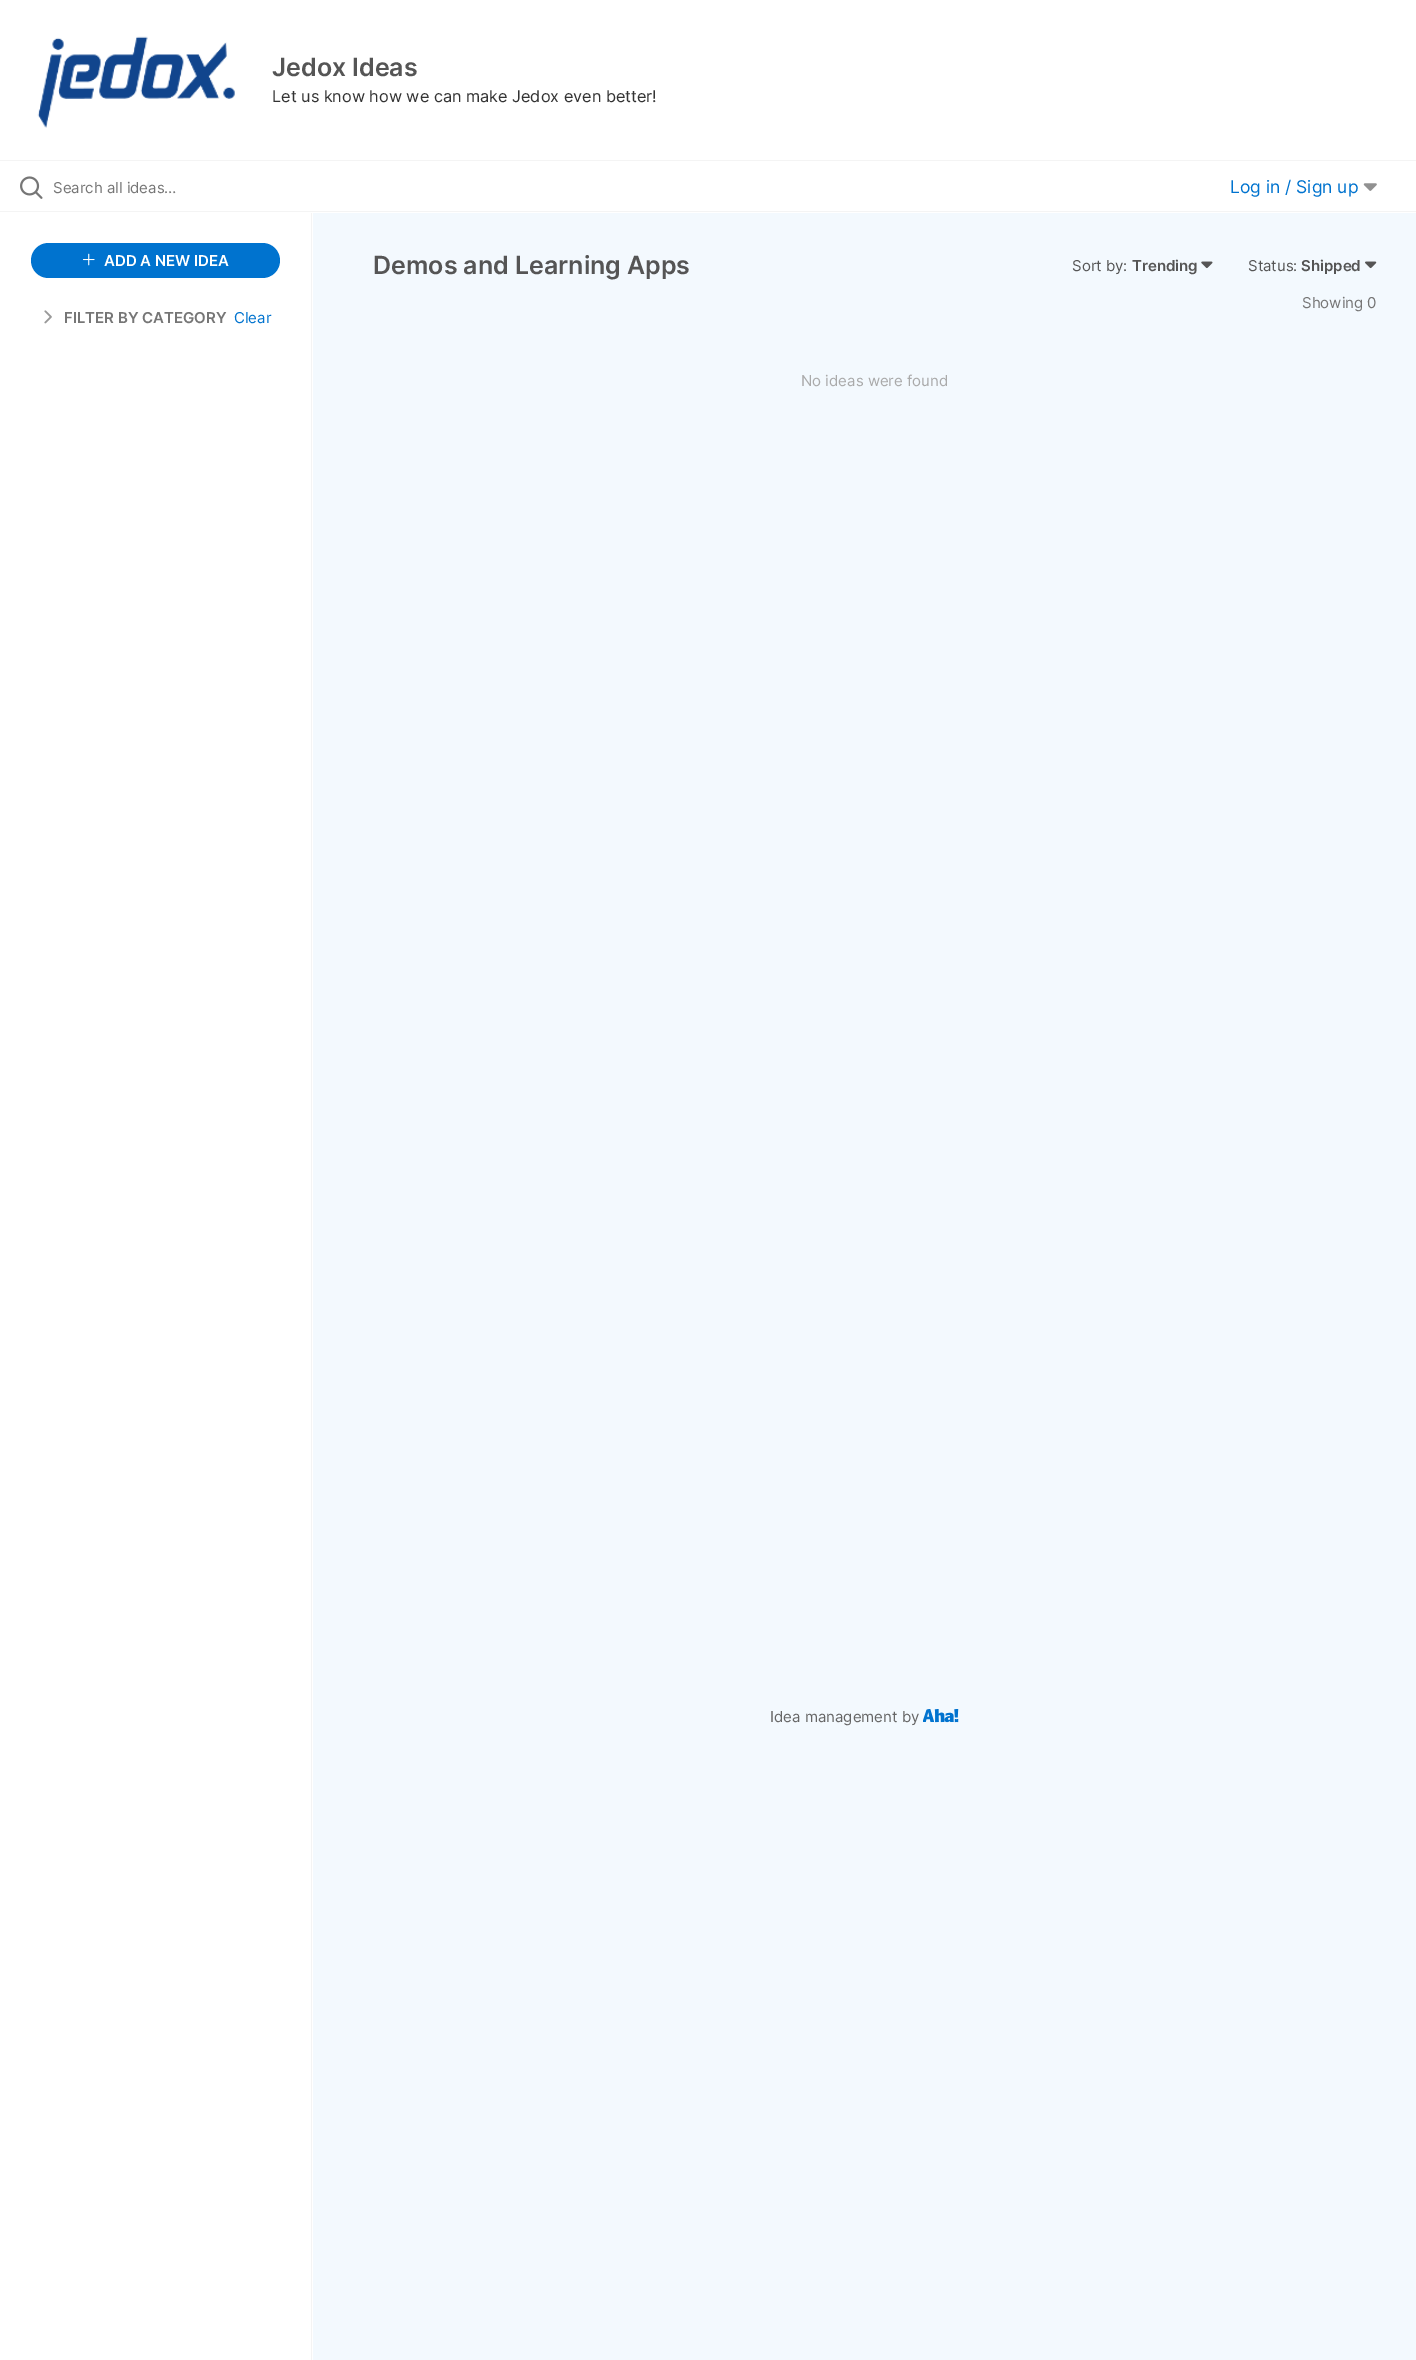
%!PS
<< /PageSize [1416 2360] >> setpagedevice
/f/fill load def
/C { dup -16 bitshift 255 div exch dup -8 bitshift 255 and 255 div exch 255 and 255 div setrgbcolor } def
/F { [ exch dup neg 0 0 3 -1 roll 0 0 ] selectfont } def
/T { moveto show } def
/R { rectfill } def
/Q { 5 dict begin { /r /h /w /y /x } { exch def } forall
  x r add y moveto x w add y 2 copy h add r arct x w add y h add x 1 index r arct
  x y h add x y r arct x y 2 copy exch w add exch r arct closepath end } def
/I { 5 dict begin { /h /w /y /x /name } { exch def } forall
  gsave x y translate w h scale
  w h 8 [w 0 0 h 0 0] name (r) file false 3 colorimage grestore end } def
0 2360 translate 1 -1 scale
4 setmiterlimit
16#F3F9FE C
0 0 1416 2360 R
16#FFFFFF C
0 0 1416 160 R
16#F4F4F4 C
0 160 1416 1 R
(1.rgb) 37 36 198 92 I
/Inter-SemiBold 25 F
16#555555 C
(Jedox Ideas) 272 76 T
/Inter-Regular 16.25 F
16#333333 C
(Let us know how we can make Jedox even better!) 272 102 T
16#FFFFFF C
0 161 1416 52 R
16#F4F4F4 C
0 211 1416 1 R
(2.rgb) 20 176 23 23 I
/Inter-Regular 15 F
16#767676 C
(Search all ideas…) 53 193 T
/Inter-Regular 17.5 F
16#0073CF C
(Log in / Sign up) 1230 193 T
(3.rgb) 1363 183 14 8 I
16#FFFFFF C
0 213 313 2147 R
16#F4F4F4 C
311 213 1 2147 R
16#0073CF C
31 243 249 35 17.5 Q f
(4.rgb) 82 253 13 13 I
/Inter-SemiBold 15 F
16#FFFFFF C
(ADD A NEW IDEA) 104 266 T
(5.rgb) 44 310 8 14 I
16#767676 C
(FILTER BY CATEGORY) 64 323 T
/Inter-Regular 15 F
16#0073CF C
(Clear) 234 323 T
/Inter-SemiBold 25 F
16#555555 C
(Demos and Learning Apps) 373 274 T
/Inter-Regular 15 F
(Sort by:) 1072 271 T
/Inter-SemiBold 15 F
(Trending) 1132 271 T
(6.rgb) 1201 261 12 8 I
/Inter-Regular 15 F
(Status:) 1248 271 T
/Inter-SemiBold 15 F
(Shipped) 1301 271 T
(7.rgb) 1365 261 12 8 I
/Inter-Regular 15 F
16#767676 C
(Showing 0) 1302 308 T
16#AAAAAA C
(No ideas were found) 801 386 T
16#666666 C
(Idea management by) 770 1722 T
(8.rgb) 923 1709 36 14 I
showpage
